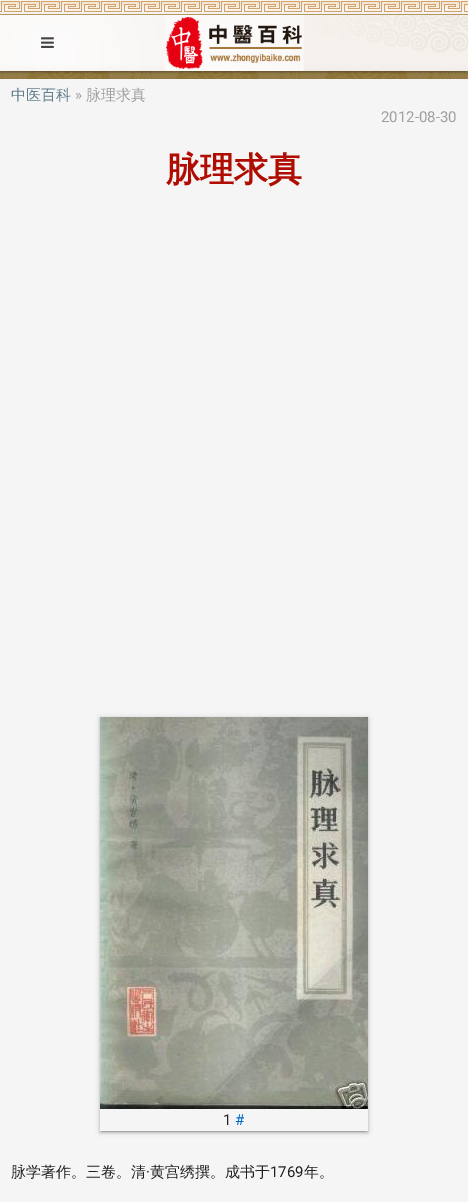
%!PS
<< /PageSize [468 1202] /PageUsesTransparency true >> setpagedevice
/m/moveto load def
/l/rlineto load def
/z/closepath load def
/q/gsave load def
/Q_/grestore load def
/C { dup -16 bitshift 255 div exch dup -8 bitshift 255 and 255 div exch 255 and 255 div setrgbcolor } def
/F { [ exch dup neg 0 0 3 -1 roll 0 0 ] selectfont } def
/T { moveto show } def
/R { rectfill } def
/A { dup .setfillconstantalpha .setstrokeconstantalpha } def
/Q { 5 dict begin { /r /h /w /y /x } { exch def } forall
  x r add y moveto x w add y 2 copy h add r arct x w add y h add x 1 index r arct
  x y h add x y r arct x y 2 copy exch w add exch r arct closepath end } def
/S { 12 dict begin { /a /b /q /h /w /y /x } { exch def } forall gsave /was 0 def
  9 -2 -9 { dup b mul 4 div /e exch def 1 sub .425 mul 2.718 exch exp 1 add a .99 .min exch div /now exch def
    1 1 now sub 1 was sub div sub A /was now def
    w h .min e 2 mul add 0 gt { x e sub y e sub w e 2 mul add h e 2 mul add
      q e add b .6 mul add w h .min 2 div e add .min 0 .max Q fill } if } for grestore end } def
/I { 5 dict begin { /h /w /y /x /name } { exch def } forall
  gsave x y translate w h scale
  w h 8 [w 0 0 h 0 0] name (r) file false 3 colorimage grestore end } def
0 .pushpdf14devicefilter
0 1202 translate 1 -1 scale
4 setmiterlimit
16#FFFFFF C
0 0 468 1202 R
(1.rgb) 0 71 468 8 I
(2.rgb) 0 0 468 15 I
16#000000 C
0 16 468 56 0 2.5 .2 S
2 20 464 52 0 .5 .12 S
0 17 468 56 0 1 .14 S
(3.rgb) 0 15 468 56 I
(4.rgb) 41 37 13 11 I
-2 80 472 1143 0 7 .12 S
-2 85 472 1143 0 8.5 .14 S
(5.rgb) 165 15 139 56 I
16#F5F5F5 C
0 79 468 1123 R
/WenQuanYiZenHei-Medium 15 F
16#607D8B C
(中医百科) 11 100 T
/Roboto-Regular 15 F
16#9E9E9E C
(») 75 100 T
/WenQuanYiZenHei-Medium 15 F
(脉理求真) 86 100 T
/Roboto-Regular 15 F
(2012-08-30) 381 122 T
/WenQuanYiZenHei-Bold 34 F
16#B10C01 C
(脉理求真) 166 181 T
q
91 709 m 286 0 l 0 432 l -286 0 l z 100 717 m 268 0 l 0 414 l -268 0 l z eoclip newpath
16#000000 C
100 718 268 414 0 2.5 .2 S
Q_
q
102 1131 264 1 rectclip
16#000000 C
102 722 264 410 0 .5 .12 S
Q_
q
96 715 m 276 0 l 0 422 l -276 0 l z 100 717 m 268 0 l 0 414 l -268 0 l z eoclip newpath
16#000000 C
100 719 268 414 0 1 .14 S
Q_
(6.rgb) 100 717 268 392 I
/Roboto-Regular 15 F
16#202020 C
(1) 223 1125 T
16#0268CD C
(#) 235 1125 T
/WenQuanYiZenHei-Medium 15 F
16#202020 C
(脉学著作。三卷。清) 11 1177 T
/Roboto-Regular 15 F
(·) 146 1177 T
/WenQuanYiZenHei-Medium 15 F
(黄宫绣撰。成书于) 150 1177 T
/Roboto-Regular 15 F
(1769) 270 1177 T
/WenQuanYiZenHei-Medium 15 F
(年。) 304 1177 T
.poppdf14devicefilter showpage
